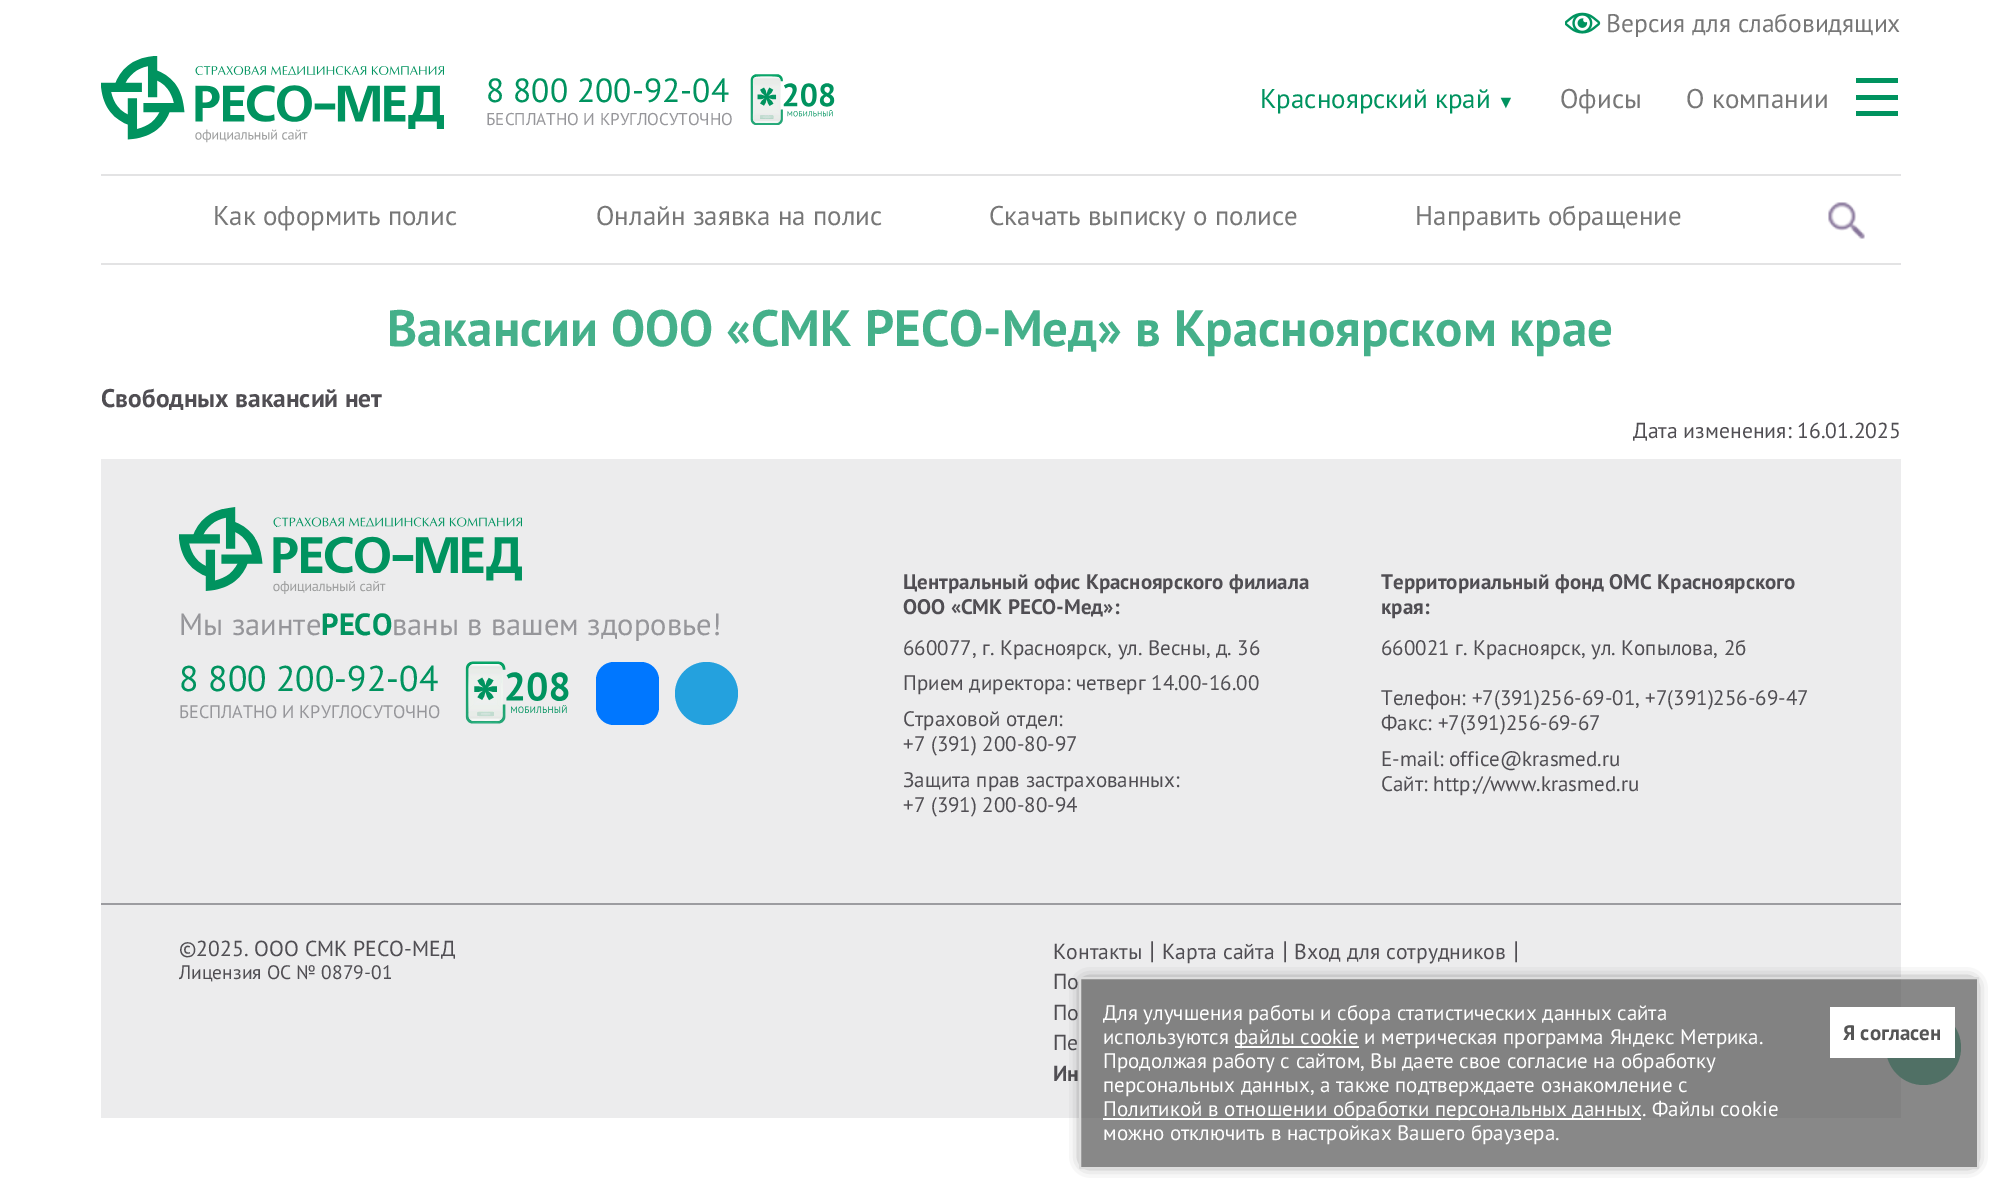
%!PS
<< /PageSize [2001 1198] /PageUsesTransparency true >> setpagedevice
/m/moveto load def
/l/rlineto load def
/c/rcurveto load def
/z/closepath load def
/f/fill load def
/s/stroke load def
/q/gsave load def
/Q_/grestore load def
/w/setlinewidth load def
/C { dup -16 bitshift 255 div exch dup -8 bitshift 255 and 255 div exch 255 and 255 div setrgbcolor } def
/F { [ exch dup neg 0 0 3 -1 roll 0 0 ] selectfont } def
/T { moveto show } def
/R { rectfill } def
/A { dup .setfillconstantalpha .setstrokeconstantalpha } def
/O { newpath 0 360 arc closepath } def
/Q { 5 dict begin { /r /h /w /y /x } { exch def } forall
  x r add y moveto x w add y 2 copy h add r arct x w add y h add x 1 index r arct
  x y h add x y r arct x y 2 copy exch w add exch r arct closepath end } def
/S { 12 dict begin { /a /b /q /h /w /y /x } { exch def } forall gsave /was 0 def
  9 -2 -9 { dup b mul 4 div /e exch def 1 sub .425 mul 2.718 exch exp 1 add a .99 .min exch div /now exch def
    1 1 now sub 1 was sub div sub A /was now def
    w h .min e 2 mul add 0 gt { x e sub y e sub w e 2 mul add h e 2 mul add
      q e add b .6 mul add w h .min 2 div e add .min 0 .max Q fill } if } for grestore end } def
/I { 5 dict begin { /h /w /y /x /name } { exch def } forall
  gsave x y translate w h scale
  w h 8 [w 0 0 h 0 0] name (r) file false 3 colorimage grestore end } def
0 .pushpdf14devicefilter
0 1198 translate 1 -1 scale
4 setmiterlimit
16#FFFFFF C
0 0 2001 1198 R
(1.rgb) 1565 12 36 22 I
/PTSans-Regular 25.5 F
16#777777 C
(Версия для слабовидящих) 1606 32 T
(2.rgb) 101 56 343 87 I
/PTSans-Regular 33.5 F
16#00935F C
(8 800 200-92-04) 486 102 T
/PTSans-Regular 17.1 F
16#96969A C
(БЕСПЛАТНО И КРУГЛОСУТОЧНО) 486 125 T
(3.rgb) 750 74 85 51 I
/PTSans-Regular 27 F
16#00935F C
(Красноярский край) 1260 108 T
/LiberationSans-Regular 18 F
(▼) 1497 108 T
/PTSans-Regular 27 F
16#777777 C
(Офисы) 1560 108 T
(О компании) 1686 108 T
16#00935F C
1856 78 42 5 R
1856 95 42 5 R
1856 111 42 5 R
16#E3E3E4 C
101 174 1800 2 R
101 263 1800 2 R
16#777777 C
(Как оформить полис) 213 225 T
(Онлайн заявка на полис) 596 225 T
(Скачать выписку о полисе) 989 225 T
(Направить обращение) 1415 225 T
(4.rgb) 1828 202 37 37 I
/PTSans-Bold 51 F
16#45B08A C
(Вакансии ООО «СМК РЕСО-Мед» в Красноярском крае) 387 346 T
/PTSans-Bold 25.5 F
16#504E53 C
(Свободных вакансий нет) 101 407 T
/PTSans-Regular 21.7 F
(Дата изменения: 16.01.2025) 1633 438 T
16#ECECED C
101 459 1800 444 R
16#9C9CA0 C
101 903 1800 2 R
(5.rgb) 179 507 343 87 I
/PTSans-Regular 30.6 F
16#96969A C
(Мы заинте) 179 635 T
/PTSans-Bold 30.6 F
16#00935F C
(РЕСО) 321 635 T
/PTSans-Regular 30.6 F
16#96969A C
(ваны в вашем здоровье!) 392 635 T
/PTSans-Regular 35.75 F
16#00935F C
(8 800 200-92-04) 179 691 T
/PTSans-Regular 18.1 F
16#96969A C
(БЕСПЛАТНО И КРУГЛОСУТОЧНО) 179 718 T
(6.rgb) 465 661 104 63 I
16#0077FF C
596 662 63 63 18 Q f
16#24A1DE C
706.5 693.5 31.5 O f
/PTSans-Bold 21 F
16#504E53 C
(Центральный офис Красноярского филиала) 903 589 T
(ООО «СМК РЕСО-Мед»:) 903 614 T
/PTSans-Regular 21 F
(660077, г. Красноярск, ул. Весны, д. 36) 903 655 T
(Прием директора: четверг 14.00-16.00) 903 690 T
(Страховой отдел:) 903 726 T
(+7 \(391\) 200-80-97) 903 751 T
(Защита прав застрахованных:) 903 787 T
(+7 \(391\) 200-80-94) 903 812 T
/PTSans-Bold 21 F
(Территориальный фонд ОМС Красноярского) 1381 589 T
(края:) 1381 614 T
/PTSans-Regular 21 F
(660021 г. Красноярск, ул. Копылова, 2б) 1381 655 T
(Телефон: +7\(391\)256-69-01, +7\(391\)256-69-47) 1381 705 T
(Факс: +7\(391\)256-69-67) 1381 730 T
(E-mail: office@krasmed.ru) 1381 766 T
(Сайт: http://www.krasmed.ru) 1381 791 T
16#ECECED C
101 905 1800 213 R
/PTSans-Regular 21.7 F
16#504E53 C
(©2025. ООО СМК РЕСО-МЕД) 179 956 T
/PTSans-Regular 19.5 F
(Лицензия ОС № 0879-01) 179 979 T
/PTSans-Regular 21.7 F
(Контакты) 1053 959 T
/PTSans-Regular 25.5 F
(|) 1149 959 T
/PTSans-Regular 21.7 F
(Карта сайта) 1162 959 T
/PTSans-Regular 25.5 F
(|) 1282 959 T
/PTSans-Regular 21.7 F
(Вход для сотрудников) 1294 959 T
/PTSans-Regular 25.5 F
(|) 1513 959 T
/PTSans-Regular 21.7 F
(По) 1053 989 T
(По) 1053 1020 T
(Пе) 1053 1050 T
/PTSans-Bold 21.7 F
(Ин) 1053 1081 T
16#45B08A C
1923.5 1047.5 37.5 O f
q
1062 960 m 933 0 l 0 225 l -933 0 l z 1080.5 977 m 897 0 l 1 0 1.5 .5 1.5 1.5 c 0 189 l 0 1 -.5 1.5 -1.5 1.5 c -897 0 l -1 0 -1.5 -.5 -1.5 -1.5 c 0 -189 l 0 -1 .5 -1.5 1.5 -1.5 c z eoclip newpath
16#000000 C
1086 984 885 177 0 7.5 1 S
Q_
0.7 A
16#555555 C
1080 978 898 190 .5 Q f
1 A
16#DDDDDD C
2 w
1080 978 898 190 .5 Q s
/PTSans-Regular 21 F
16#FFFFFF C
(Для улучшения работы и сбора статистических данных сайта) 1103 1020 T
(используются) 1103 1044 T
1235 1046 124 2 R
(файлы cookie и метрическая программа Яндекс Метрика.) 1234 1044 T
(Продолжая работу с сайтом, Вы даете свое согласие на обработку) 1103 1068 T
(персональных данных, а также подтверждаете ознакомление с) 1103 1092 T
1103 1118 538 2 R
(Политикой в отношении обработки персональных данных. Файлы cookie) 1103 1116 T
(можно отключить в настройках Вашего браузера.) 1103 1140 T
1830 1007 125 51 R
/PTSans-Bold 21 F
16#555555 C
(Я согласен) 1843 1040 T
.poppdf14devicefilter showpage
